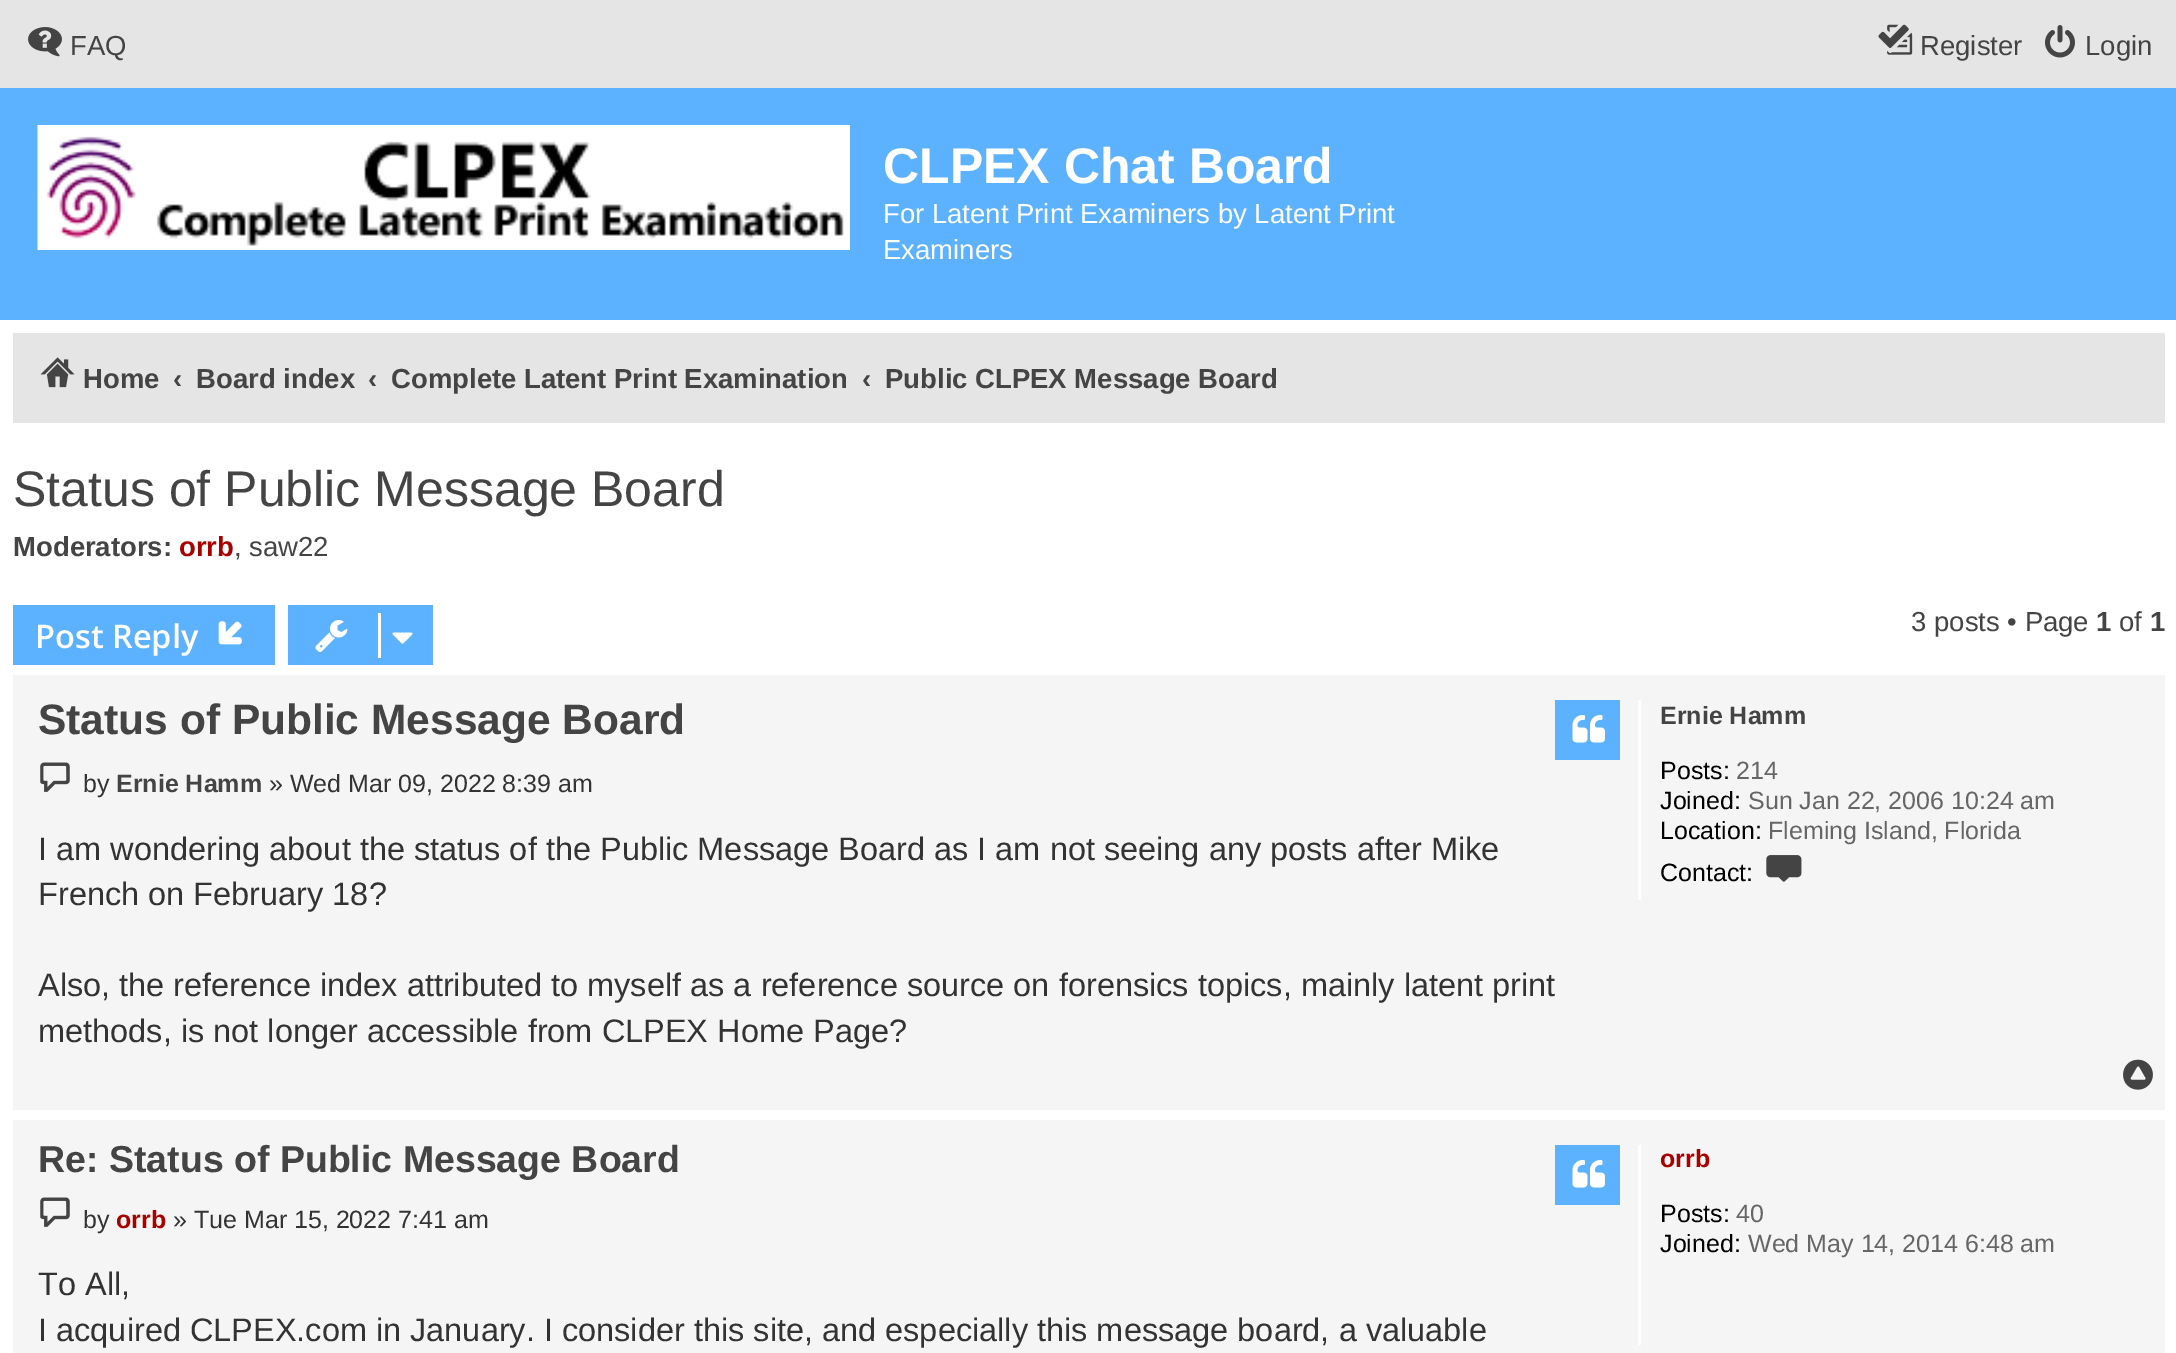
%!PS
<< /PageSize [2176 1353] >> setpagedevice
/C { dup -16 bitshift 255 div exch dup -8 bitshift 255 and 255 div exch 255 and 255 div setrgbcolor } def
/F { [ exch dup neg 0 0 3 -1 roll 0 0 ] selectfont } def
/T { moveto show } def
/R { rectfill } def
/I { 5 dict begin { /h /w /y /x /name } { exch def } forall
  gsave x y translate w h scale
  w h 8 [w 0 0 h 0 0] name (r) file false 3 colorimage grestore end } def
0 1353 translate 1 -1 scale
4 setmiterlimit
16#FFFFFF C
0 0 2176 1353 R
16#E5E5E5 C
0 0 2176 88 R
(1.rgb) 28 27 34 30 I
/LiberationSans-Regular 27.5 F
16#444444 C
(FAQ) 70 55 T
(2.rgb) 1878 24 35 31 I
(Register) 1920 55 T
(3.rgb) 2045 25 30 33 I
(Login) 2085 55 T
16#5DB2FF C
0 88 2176 232 R
(4.rgb) 37 125 813 125 I
/LiberationSans-Bold 50 F
16#FFFFFF C
(CLPEX Chat Board) 883 183 T
/LiberationSans-Regular 27.5 F
(For Latent Print Examiners by Latent Print) 883 223 T
(Examiners) 883 259 T
16#E5E5E5 C
13 333 2152 90 R
(5.rgb) 40 357 35 31 I
/LiberationSans-Bold 27.5 F
16#444444 C
(Home) 83 388 T
(‹) 173 388 T
(Board index) 196 388 T
(‹) 368 388 T
(Complete Latent Print Examination) 391 388 T
(‹) 862 388 T
(Public CLPEX Message Board) 885 388 T
/LiberationSans-Regular 50 F
(Status of Public Message Board) 13 506 T
/LiberationSans-Bold 27.5 F
(Moderators:) 13 556 T
16#AA0000 C
(orrb) 179 556 T
/LiberationSans-Regular 27.5 F
16#444444 C
(, saw22) 234 556 T
16#5DB2FF C
13 605 262 60 R
/OpenSans-SemiBold 32.5 F
16#FFFFFF C
(Post Reply) 35 648 T
(6.rgb) 218 621 24 24 I
16#5DB2FF C
288 605 145 60 R
(7.rgb) 315 620 33 32 I
16#FFFFFF C
378 613 3 45 R
(8.rgb) 392 632 21 12 I
/LiberationSans-Regular 27.5 F
16#444444 C
(3 posts • Page) 1911 631 T
/LiberationSans-Bold 27.5 F
(1) 2096 631 T
/LiberationSans-Regular 27.5 F
(of) 2119 631 T
/LiberationSans-Bold 27.5 F
(1) 2150 631 T
16#F5F5F5 C
13 675 2152 435 R
/LiberationSans-Bold 42.5 F
16#444444 C
(Status of Public Message Board) 38 734 T
16#5DB2FF C
1555 700 65 60 R
(9.rgb) 1572 715 33 28 I
(10.rgb) 40 762 30 30 I
/LiberationSans-Regular 25 F
16#333333 C
(by) 83 792 T
/LiberationSans-Bold 25 F
16#444444 C
(Ernie Hamm) 116 792 T
/LiberationSans-Regular 25 F
16#333333 C
(» Wed Mar 09, 2022 8:39 am) 269 792 T
/LiberationSans-Regular 32.5 F
(I am wondering about the status of the Public Message Board as I am not seeing any posts after Mike) 38 860 T
(French on February 18?) 38 905 T
(Also, the reference index attributed to myself as a reference source on forensics topics, mainly latent print) 38 996 T
(methods, is not longer accessible from CLPEX Home Page?) 38 1042 T
16#FFFFFF C
1638 700 3 200 R
/LiberationSans-Bold 25 F
16#444444 C
(Ernie Hamm) 1660 724 T
/LiberationSans-Regular 25 F
16#000000 C
(Posts:) 1660 779 T
16#666666 C
(214) 1736 779 T
16#000000 C
(Joined:) 1660 809 T
16#666666 C
(Sun Jan 22, 2006 10:24 am) 1748 809 T
16#000000 C
(Location:) 1660 839 T
16#666666 C
(Fleming Island, Florida) 1768 839 T
16#000000 C
(Contact:) 1660 881 T
(11.rgb) 1766 855 36 27 I
(12.rgb) 2123 1059 30 31 I
16#F5F5F5 C
13 1120 2152 233 R
/LiberationSans-Bold 37.5 F
16#444444 C
(Re: Status of Public Message Board) 38 1172 T
16#5DB2FF C
1555 1145 65 60 R
(9.rgb) 1572 1160 33 28 I
(10.rgb) 40 1197 30 30 I
/LiberationSans-Regular 25 F
16#333333 C
(by) 83 1228 T
/LiberationSans-Bold 25 F
16#AA0000 C
(orrb) 116 1228 T
/LiberationSans-Regular 25 F
16#333333 C
(» Tue Mar 15, 2022 7:41 am) 173 1228 T
/LiberationSans-Regular 32.5 F
(To All,) 38 1295 T
(I acquired CLPEX.com in January. I consider this site, and especially this message board, a valuable) 38 1341 T
16#FFFFFF C
1638 1145 3 200 R
/LiberationSans-Bold 25 F
16#AA0000 C
(orrb) 1660 1167 T
/LiberationSans-Regular 25 F
16#000000 C
(Posts:) 1660 1222 T
16#666666 C
(40) 1736 1222 T
16#000000 C
(Joined:) 1660 1252 T
16#666666 C
(Wed May 14, 2014 6:48 am) 1748 1252 T
showpage
